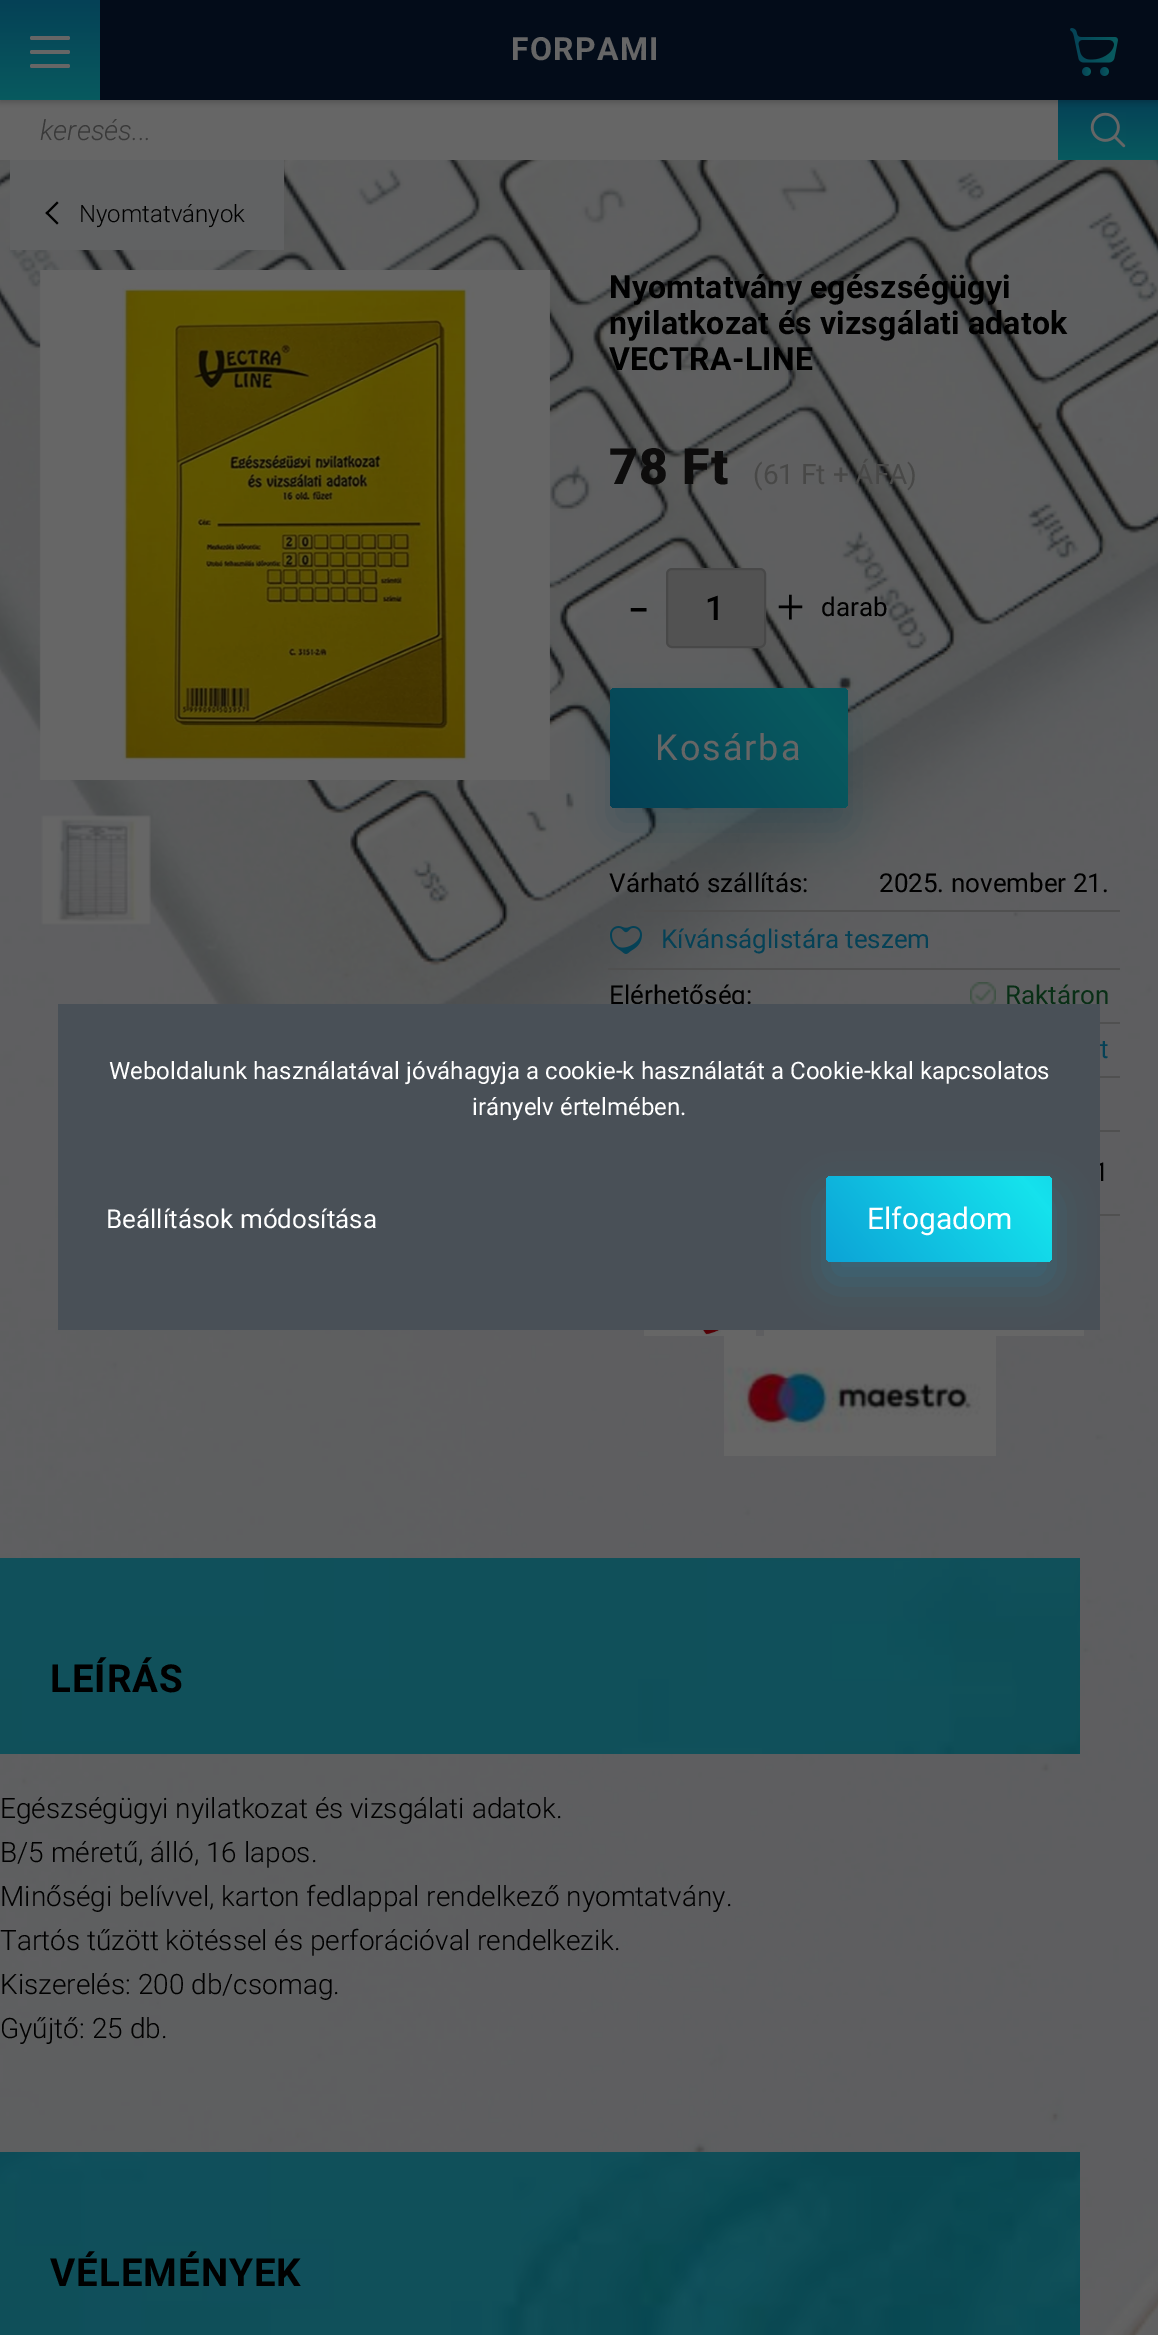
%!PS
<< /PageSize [1158 2335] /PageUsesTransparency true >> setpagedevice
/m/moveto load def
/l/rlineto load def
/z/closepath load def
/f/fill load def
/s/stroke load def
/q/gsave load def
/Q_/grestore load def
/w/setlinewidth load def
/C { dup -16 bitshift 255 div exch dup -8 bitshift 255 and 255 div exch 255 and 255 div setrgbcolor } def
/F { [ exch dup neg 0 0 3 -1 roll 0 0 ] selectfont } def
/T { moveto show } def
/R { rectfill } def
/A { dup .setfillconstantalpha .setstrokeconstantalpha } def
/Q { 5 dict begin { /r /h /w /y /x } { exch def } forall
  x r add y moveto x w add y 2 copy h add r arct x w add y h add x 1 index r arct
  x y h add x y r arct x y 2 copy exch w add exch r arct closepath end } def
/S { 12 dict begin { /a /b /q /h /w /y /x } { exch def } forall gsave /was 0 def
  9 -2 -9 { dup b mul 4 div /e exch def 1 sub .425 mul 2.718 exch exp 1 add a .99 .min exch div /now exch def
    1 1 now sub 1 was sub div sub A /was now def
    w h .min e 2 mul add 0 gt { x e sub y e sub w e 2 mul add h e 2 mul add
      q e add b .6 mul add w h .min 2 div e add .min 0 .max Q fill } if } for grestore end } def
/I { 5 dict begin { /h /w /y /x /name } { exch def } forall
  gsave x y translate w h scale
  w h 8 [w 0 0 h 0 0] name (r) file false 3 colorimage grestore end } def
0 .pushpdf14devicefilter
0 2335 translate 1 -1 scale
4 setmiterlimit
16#FFFFFF C
0 0 1158 2335 R
(1.rgb) 0 160 1158 2175 I
16#666666 C
0 100 1058 60 R
q 1058 100 m 100 0 l 0 60 l -100 0 l z clip newpath
<< /ShadingType 2 /ColorSpace /DeviceRGB /Coords [1108 100 1108 160] /Extend [true true] /Function << /FunctionType 2 /Domain [0 1] /C0 [.02 .255 .337] /C1 [.031 .353 .373] /N 1 >> >> shfill Q_
16#000000 C
0 2 1158 100 0 3 .2 S
16#030C19 C
100 0 1058 100 R
q 0 0 m 100 0 l 0 100 l -100 0 l z clip newpath
<< /ShadingType 2 /ColorSpace /DeviceRGB /Coords [50 0 50 100] /Extend [true true] /Function << /FunctionType 2 /Domain [0 1] /C0 [.02 .255 .337] /C1 [.031 .353 .373] /N 1 >> >> shfill Q_
16#666666 C
30 36 40 4 2 Q f
30 50 40 4 2 Q f
30 64 40 4 2 Q f
/Roboto-Bold 32 F
511 60 m 1.25 0 (FORPAMI) ashow
(2.rgb) 1070 28 48 48 I
/Roboto-LightItalic 28 F
16#393939 C
(keresés...) 40 140 T
(3.rgb) 1090 112 36 36 I
16#616263 C
10 160 274 90 R
16#000000 C
58.5 223 m -1.5 1.5 l -11.5 -11.5 l 1.5 -1.5 l z f
58.5 203 m -11.5 11.5 l -1.5 -1.5 l 11.5 -11.5 l z f
/Roboto-Light 24 F
(Nyomtatványok) 79 222 T
(4.rgb) 39 270 511 510 I
(5.rgb) 41 815 110 110 I
/Roboto-Bold 32 F
609 298 m .2 0 (Nyomtatvány egészségügyi) ashow
609 334 m .2 0 (nyilatkozat és vizsgálati adatok) ashow
609 370 m .2 0 (VECTRA-LINE) ashow
/Roboto-Black 50 F
16#0D0C0C C
609 484 m 1 0 (78 Ft) ashow
/Roboto-Regular 28 F
16#484847 C
(\(61 Ft + ÁFA\)) 753 484 T
/Roboto-Light 68 F
16#000000 C
(-) 629 631 T
16#525252 C
667 569 98 78 5 Q q f Q_
16#484848 C
2 w
s
/Roboto-Medium 34 F
16#000000 C
(1) 705 620 T
/Roboto-Light 48 F
(+) 777 623 T
/Roboto-Regular 26 F
(darab) 821 616 T
16#054156 C
610 708 238 120 6 20 .25 S
q 610 688 238 120 6 Q clip newpath
<< /ShadingType 2 /ColorSpace /DeviceRGB /Coords [679 890 1017 606] /Extend [true true] /Function << /FunctionType 3 /Domain [0 1] /Functions [<< /FunctionType 2 /Domain [0 1] /C0 [.02 .255 .337] /C1 [.031 .353 .373] /N 1 >> << /FunctionType 2 /Domain [0 1] /C0 [.031 .353 .373] /C1 [.02 .255 .337] /N 1 >>] /Bounds [.51] /Encode [0 1 0 1] >> >> shfill Q_
/Roboto-Regular 36 F
16#666666 C
655 760 m 2 0 (Kosárba) ashow
16#505050 C
644 910 476 2 R
/Roboto-Regular 26 F
16#000000 C
(Várható szállítás:) 609 892 T
(2025. november 21.) 879 892 T
16#505050 C
608 968 512 2 R
(6.rgb) 610 926 32 28 I
16#054156 C
(Kívánságlistára teszem) 661 948 T
16#505050 C
1100 1022 20 2 R
16#000000 C
(Elérhetőség:) 609 1004 T
(7.rgb) 970 982 26 22 I
16#092F16 C
(Raktáron) 1005 1004 T
16#505050 C
1100 1076 20 2 R
16#054156 C
(t) 1100 1058 T
16#505050 C
1100 1130 20 2 R
1100 1214 20 2 R
16#000000 C
(1) 1094 1181 T
(8.rgb) 644 1330 112 6 I
(9.rgb) 764 1330 320 6 I
(10.rgb) 724 1336 272 120 I
(11.rgb) 0 1558 1080 196 I
/Roboto-Bold 38.5 F
50 1692 m 1 0 (LEÍRÁS) ashow
/Roboto-Light 28 F
(Egészségügyi nyilatkozat és vizsgálati adatok.) 0 1818 T
(B/5 méretű, álló, 16 lapos.) 0 1862 T
(Minőségi belívvel, karton fedlappal rendelkező nyomtatvány.) 0 1906 T
(Tartós tűzött kötéssel és perforációval rendelkezik.) 0 1950 T
(Kiszerelés: 200 db/csomag.) 0 1994 T
(Gyűjtő: 25 db.) 0 2038 T
(12.rgb) 0 2152 1080 183 I
/Roboto-Bold 38.5 F
50 2286 m 1 0 (VÉLEMÉNYEK) ashow
16#495057 C
58 1004 1042 326 R
/Roboto-Regular 24 F
16#FFFFFF C
(Weboldalunk használatával jóváhagyja a cookie-k használatát a Cookie-kkal kapcsolatos) 109 1079 T
(irányelv értelmében.) 472 1115 T
/Roboto-Regular 26 F
(Beállítások módosítása) 106 1228 T
16#0CA3D6 C
826 1196 226 86 6 20 .25 S
q 826 1176 226 86 6 Q clip newpath
<< /ShadingType 2 /ColorSpace /DeviceRGB /Coords [898 1349 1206 1091] /Extend [true true] /Function << /FunctionType 3 /Domain [0 1] /Functions [<< /FunctionType 2 /Domain [0 1] /C0 [.047 .639 .839] /C1 [.082 .886 .929] /N 1 >> << /FunctionType 2 /Domain [0 1] /C0 [.082 .886 .929] /C1 [.047 .639 .839] /N 1 >>] /Bounds [.51] /Encode [0 1 0 1] >> >> shfill Q_
/Roboto-Regular 30 F
16#FFFFFF C
(Elfogadom) 867 1229 T
.poppdf14devicefilter showpage
